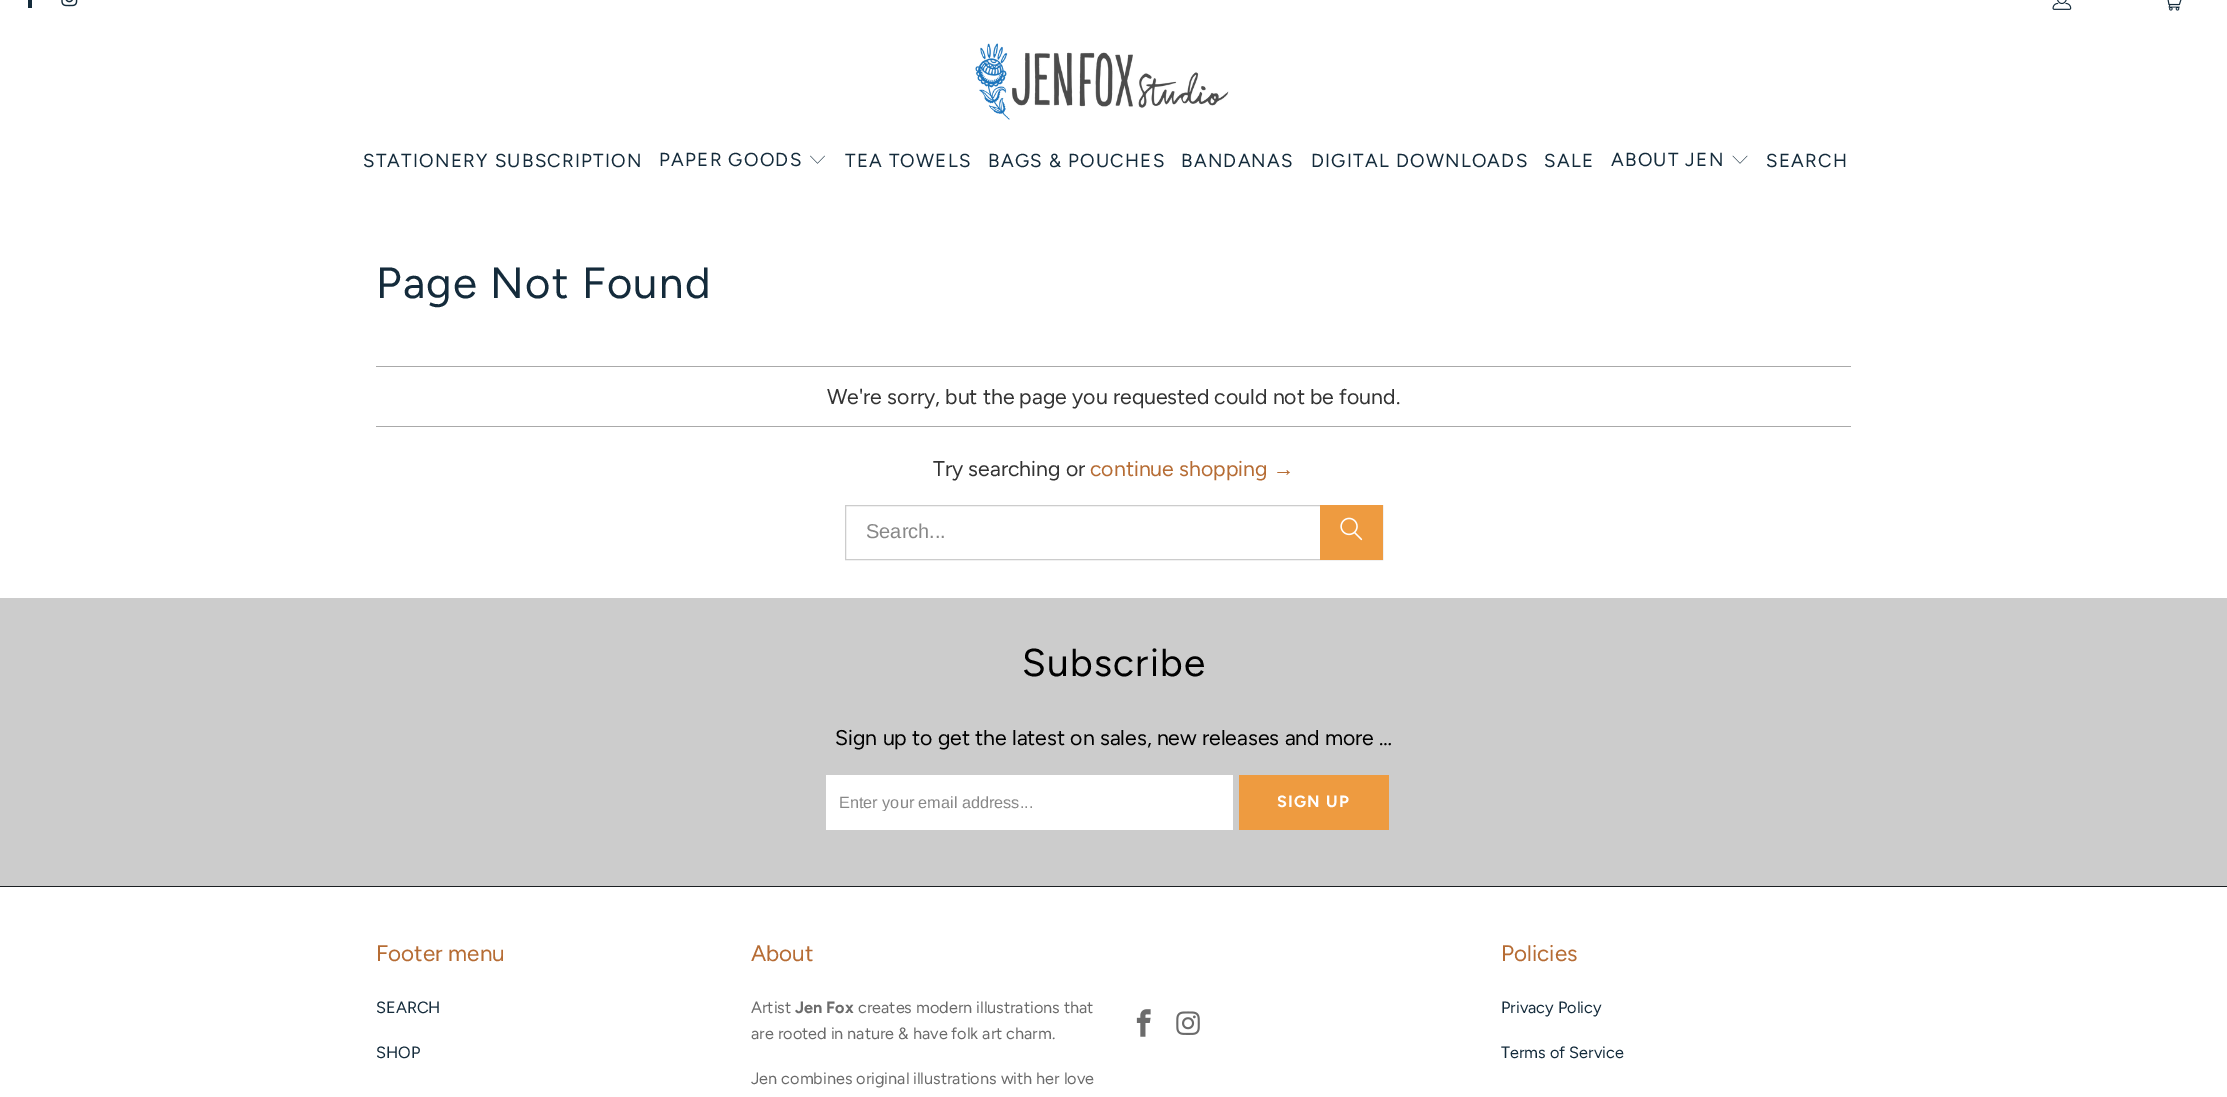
%!PS
<< /PageSize [2227 1097] >> setpagedevice
/m/moveto load def
/q/gsave load def
/Q_/grestore load def
/C { dup -16 bitshift 255 div exch dup -8 bitshift 255 and 255 div exch 255 and 255 div setrgbcolor } def
/F { [ exch dup neg 0 0 3 -1 roll 0 0 ] selectfont } def
/T { moveto show } def
/R { rectfill } def
/I { 5 dict begin { /h /w /y /x /name } { exch def } forall
  gsave x y translate w h scale
  w h 8 [w 0 0 h 0 0] name (r) file false 3 colorimage grestore end } def
0 1097 translate 1 -1 scale
4 setmiterlimit
16#FFFFFF C
0 0 2227 1097 R
16#142B3B C
28 0 4 8 R
(1.rgb) 61 0 17 7 I
(2.rgb) 2052 0 20 10 I
(3.rgb) 2167 0 15 11 I
(4.rgb) 975 43 254 77 I
/Figtree-Regular 18.75 F
363 167 m 1.25 0 (STATIONERY SUBSCRIPTION) ashow
659 166 m 1.25 0 (PAPER GOODS) ashow
(5.rgb) 810 155 15 9 I
845 167 m 1.25 0 (TEA TOWELS) ashow
988 167 m 1.25 0 (BAGS & POUCHES) ashow
1181 167 m 1.25 0 (BANDANAS) ashow
1311 167 m 1.25 0 (DIGITAL DOWNLOADS) ashow
1544 167 m 1.25 0 (SALE) ashow
1611 166 m 1.25 0 (ABOUT JEN) ashow
(6.rgb) 1732 155 16 9 I
1766 167 m 1.25 0 (SEARCH) ashow
/Figtree-Regular 43.75 F
376 298 m 1.25 0 (Page Not Found) ashow
16#AAAAAA C
376 366 1475 1 R
376 426 1475 1 R
/Figtree-Regular 21.25 F
16#333333 C
(We're sorry, but the page you requested could not be found.) 827 404 T
(Try searching or) 933 476 T
16#B66C34 C
(continue shopping) 1090 476 T
/LiberationSans-Regular 21.25 F
(→) 1273 476 T
16#CCCCCC C
845.5 505.5 537 54 rectstroke
/LiberationSans-Regular 20 F
16#888888 C
(Search...) 866 538 T
16#EE9B40 C
1320 505 63 55 R
(7.rgb) 1340 517 23 24 I
16#CCCCCC C
0 598 2227 288 R
/Figtree-Regular 38.75 F
16#000000 C
1022 676 m 1.25 0 (Subscribe) ashow
/Figtree-Regular 21.25 F
(Sign up to get the latest on sales, new releases and more …) 835 745 T
16#FFFFFF C
826 775 407 55 R
q
839 793 381 18 rectclip
/LiberationSans-Regular 16.25 F
16#888888 C
(Enter your email address...) 839 808 T
Q_
16#EE9B40 C
1239 775 150 55 R
/Figtree-Bold 16.25 F
16#FFFFFF C
1277 807 m 1.25 0 (SIGN UP) ashow
16#1B1F23 C
0 886 2227 1 R
/Figtree-Regular 22.5 F
16#B66C34 C
(Footer menu) 376 961 T
/Figtree-Regular 16.25 F
16#142B3B C
(SEARCH) 376 1013 T
(SHOP) 376 1058 T
/Figtree-Regular 22.5 F
16#B66C34 C
(About) 751 961 T
/Figtree-Regular 16.25 F
16#6B6B6B C
(Artist) 751 1013 T
/Figtree-Bold 16.25 F
(Jen Fox) 795 1013 T
/Figtree-Regular 16.25 F
(creates modern illustrations that) 858 1013 T
(are rooted in nature & have folk art charm.) 751 1039 T
(Jen combines original illustrations with her love) 751 1084 T
(8.rgb) 1136 1009 15 28 I
(9.rgb) 1176 1011 24 24 I
/Figtree-Regular 22.5 F
16#B66C34 C
(Policies) 1501 961 T
/Figtree-Regular 16.25 F
16#142B3B C
(Privacy Policy) 1501 1013 T
(Terms of Service) 1501 1058 T
showpage
